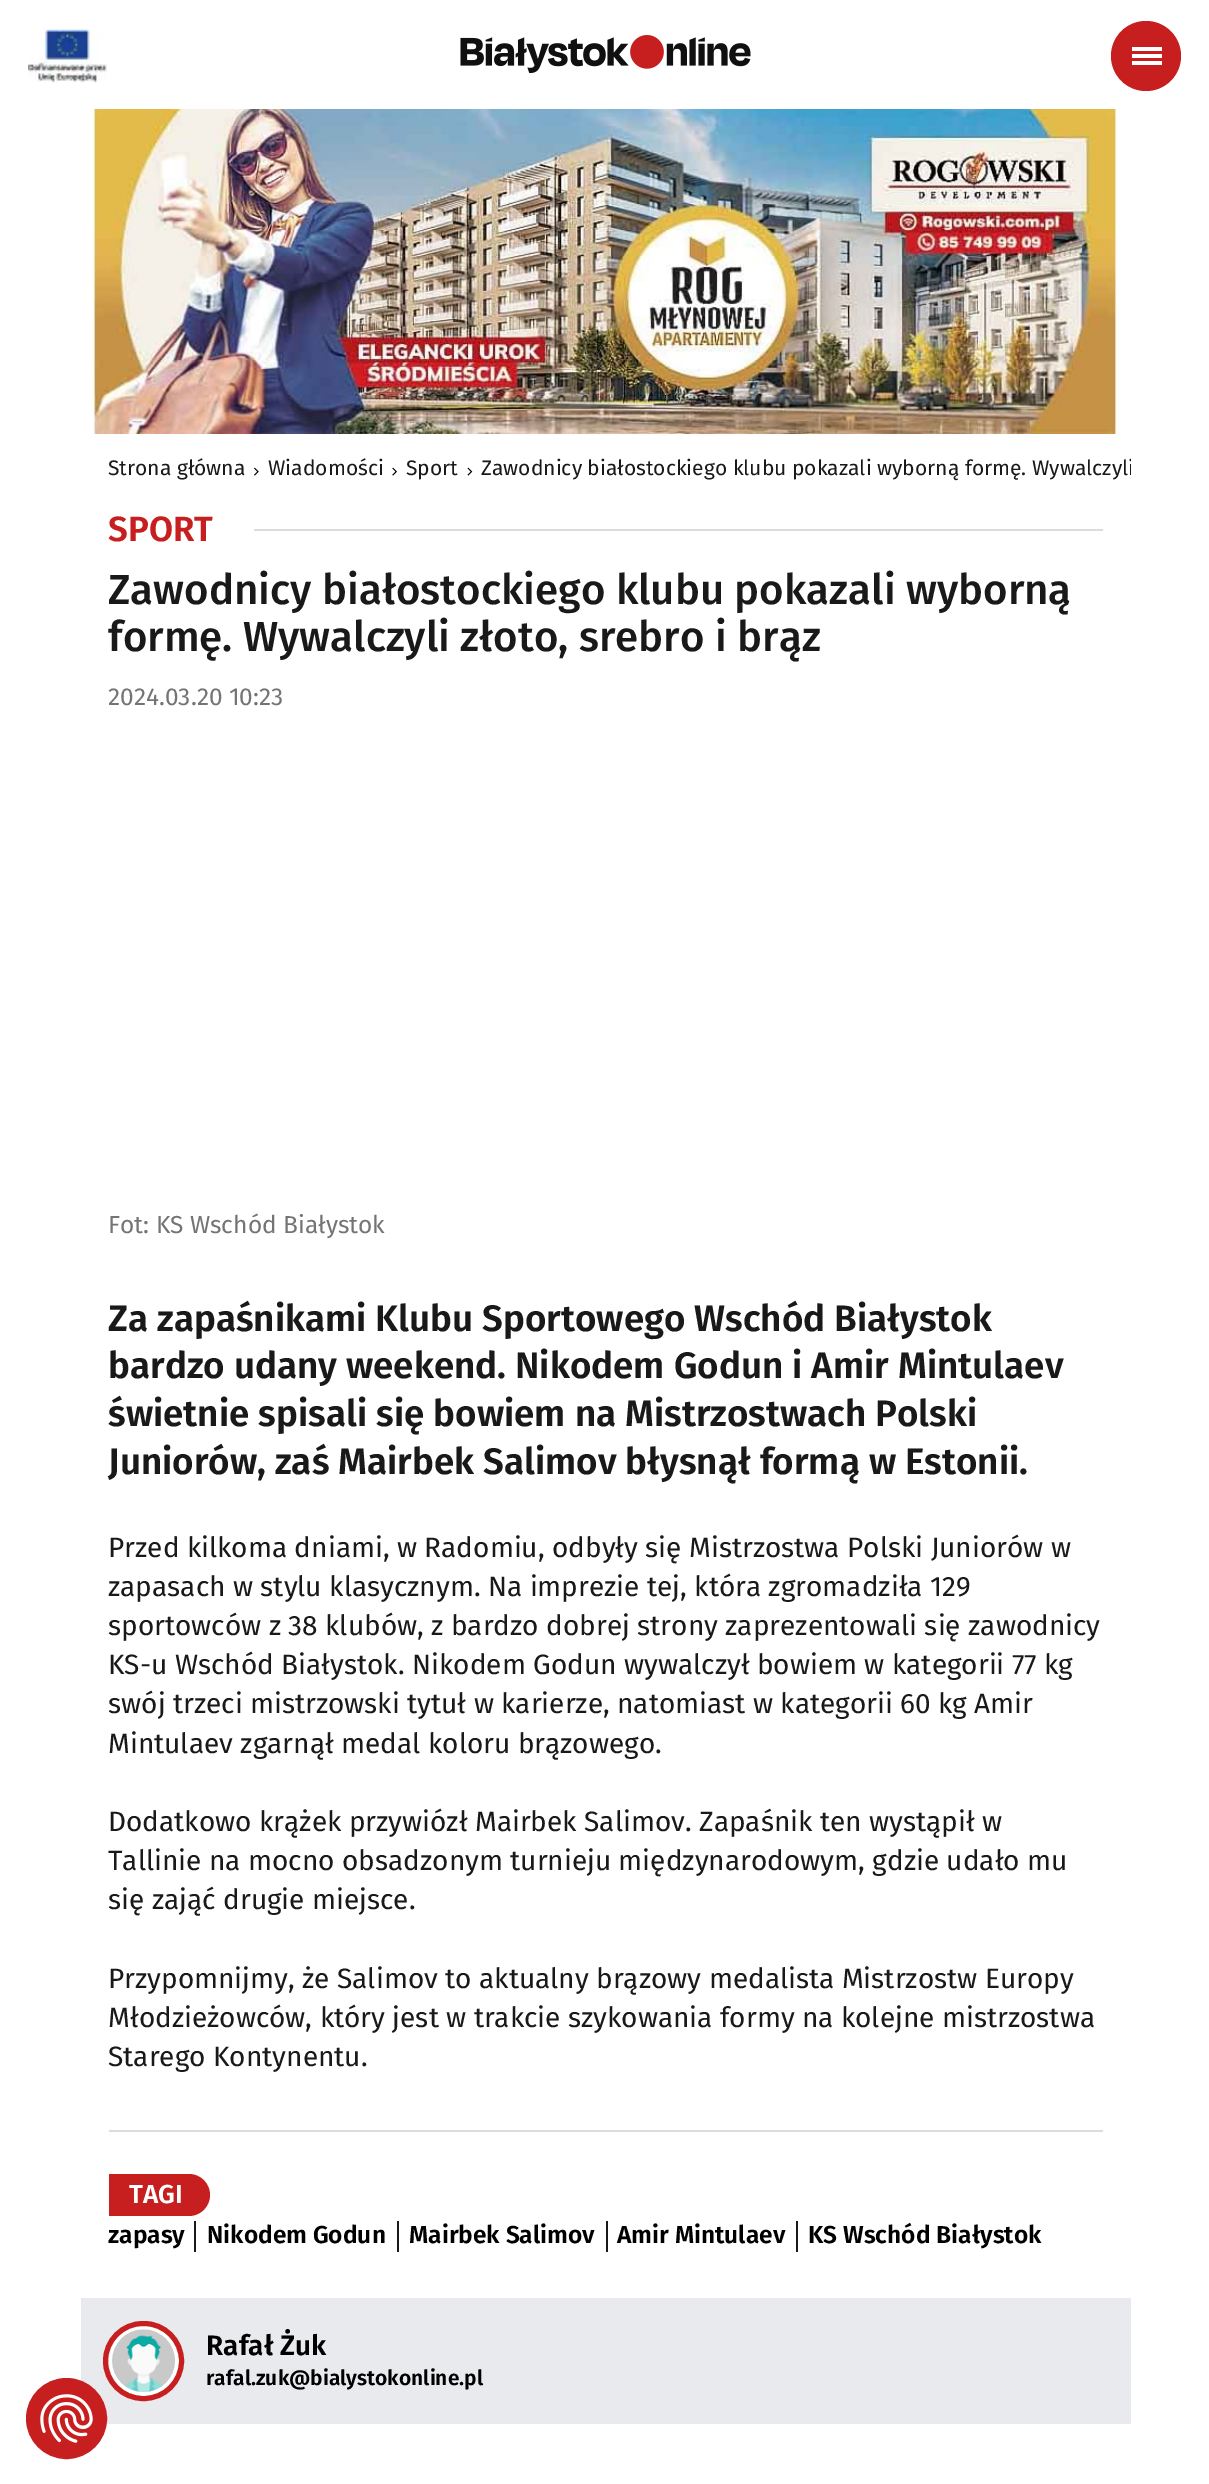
%!PS
<< /PageSize [1209 2484] >> setpagedevice
/m/moveto load def
/l/rlineto load def
/c/rcurveto load def
/z/closepath load def
/f/fill load def
/s/stroke load def
/q/gsave load def
/Q_/grestore load def
/w/setlinewidth load def
/C { dup -16 bitshift 255 div exch dup -8 bitshift 255 and 255 div exch 255 and 255 div setrgbcolor } def
/F { [ exch dup neg 0 0 3 -1 roll 0 0 ] selectfont } def
/T { moveto show } def
/R { rectfill } def
/O { newpath 0 360 arc closepath } def
/Q { 5 dict begin { /r /h /w /y /x } { exch def } forall
  x r add y moveto x w add y 2 copy h add r arct x w add y h add x 1 index r arct
  x y h add x y r arct x y 2 copy exch w add exch r arct closepath end } def
/I { 5 dict begin { /h /w /y /x /name } { exch def } forall
  gsave x y translate w h scale
  w h 8 [w 0 0 h 0 0] name (r) file false 3 colorimage grestore end } def
0 2484 translate 1 -1 scale
4 setmiterlimit
16#FFFFFF C
0 0 1209 2484 R
(1.rgb) 28 29 79 54 I
(2.rgb) 460 35 291 38 I
16#C71F1F C
1146 56 35 O f
16#FFFFFF C
1132 54 30 4 R
1132 47 30 4 R
1132 61 30 4 R
(3.rgb) 92 109 1025 325 I
/FiraSans-Regular 21 F
16#191919 C
(Strona główna) 108 475 T
(4.rgb) 254 467 5 9 I
(Wiadomości) 268 475 T
(5.rgb) 392 467 5 9 I
(Sport) 406 475 T
(6.rgb) 467 467 6 9 I
q
81 455 1050 28 rectclip
(Zawodnicy białostockiego klubu pokazali wyborną formę. Wywalczyli) 481 475 T
Q_
/FiraSans-SemiBold 35 F
16#C71F1F C
(SPORT) 108 541 T
16#DCDCDC C
254 529 849 2 R
/FiraSans-Medium 42 F
16#191919 C
(Zawodnicy białostockiego klubu pokazali wyborną) 108 604 T
(formę. Wywalczyli złoto, srebro i brąz) 108 651 T
/FiraSans-Regular 24.5 F
16#747474 C
(2024.03.20 10:23) 108 705 T
(Fot: KS Wschód Białystok) 108 1233 T
/FiraSans-SemiBold 36.75 F
16#191919 C
(Za zapaśnikami Klubu Sportowego Wschód Białystok) 108 1331 T
(bardzo udany weekend. Nikodem Godun i Amir Mintulaev) 108 1378 T
(świetnie spisali się bowiem na Mistrzostwach Polski) 108 1426 T
(Juniorów, zaś Mairbek Salimov błysnął formą w Estonii.) 108 1474 T
/FiraSans-Regular 28 F
(Przed kilkoma dniami, w Radomiu, odbyły się Mistrzostwa Polski Juniorów w) 108 1557 T
(zapasach w stylu klasycznym. Na imprezie tej, która zgromadziła 129) 108 1596 T
(sportowców z 38 klubów, z bardzo dobrej strony zaprezentowali się zawodnicy) 108 1635 T
(KS-u Wschód Białystok. Nikodem Godun wywalczył bowiem w kategorii 77 kg) 108 1674 T
(swój trzeci mistrzowski tytuł w karierze, natomiast w kategorii 60 kg Amir) 108 1713 T
(Mintulaev zgarnął medal koloru brązowego.) 108 1753 T
(Dodatkowo krążek przywiózł Mairbek Salimov. Zapaśnik ten wystąpił w) 108 1831 T
(Tallinie na mocno obsadzonym turnieju międzynarodowym, gdzie udało mu) 108 1870 T
(się zająć drugie miejsce.) 108 1909 T
(Przypomnijmy, że Salimov to aktualny brązowy medalista Mistrzostw Europy) 108 1988 T
(Młodzieżowców, który jest w trakcie szykowania formy na kolejne mistrzostwa) 108 2027 T
(Starego Kontynentu.) 108 2066 T
16#DCDCDC C
109 2130 994 2 R
16#C71F1F C
109 2174 m 80 0 l 11.5 0 21 9.5 21 21 c 0 11.5 -9.5 21 -21 21 c -80 0 l z f
/FiraSans-SemiBold 26 F
16#FFFFFF C
(TAGI) 129 2203 T
16#191919 C
194 2221 2 31 R
/FiraSans-SemiBold 24.5 F
16#000000 C
(zapasy) 108 2243 T
16#191919 C
397 2221 2 31 R
16#000000 C
(Nikodem Godun) 207 2243 T
16#191919 C
606 2221 2 31 R
16#000000 C
(Mairbek Salimov) 409 2243 T
16#191919 C
796 2221 2 31 R
16#000000 C
(Amir Mintulaev) 617 2243 T
(KS Wschód Białystok) 808 2243 T
16#E8EAEE C
81 2298 1050 126 R
16#FFFFFF C
4 w
144 2361 33 O s
(7.rgb) 112 2329 63 63 I
16#C71F1F C
5 w
105.5 2323.5 76 75 37.5 Q s
/FiraSans-SemiBold 28 F
16#000000 C
(Rafał Żuk) 206 2355 T
/FiraSans-SemiBold 21 F
(rafal.zuk@bialystokonline.pl) 206 2385 T
16#C71F1F C
66.5 2418.5 39.5 O q f Q_
2 w
s
(8.rgb) 40 2394 53 49 I
showpage
